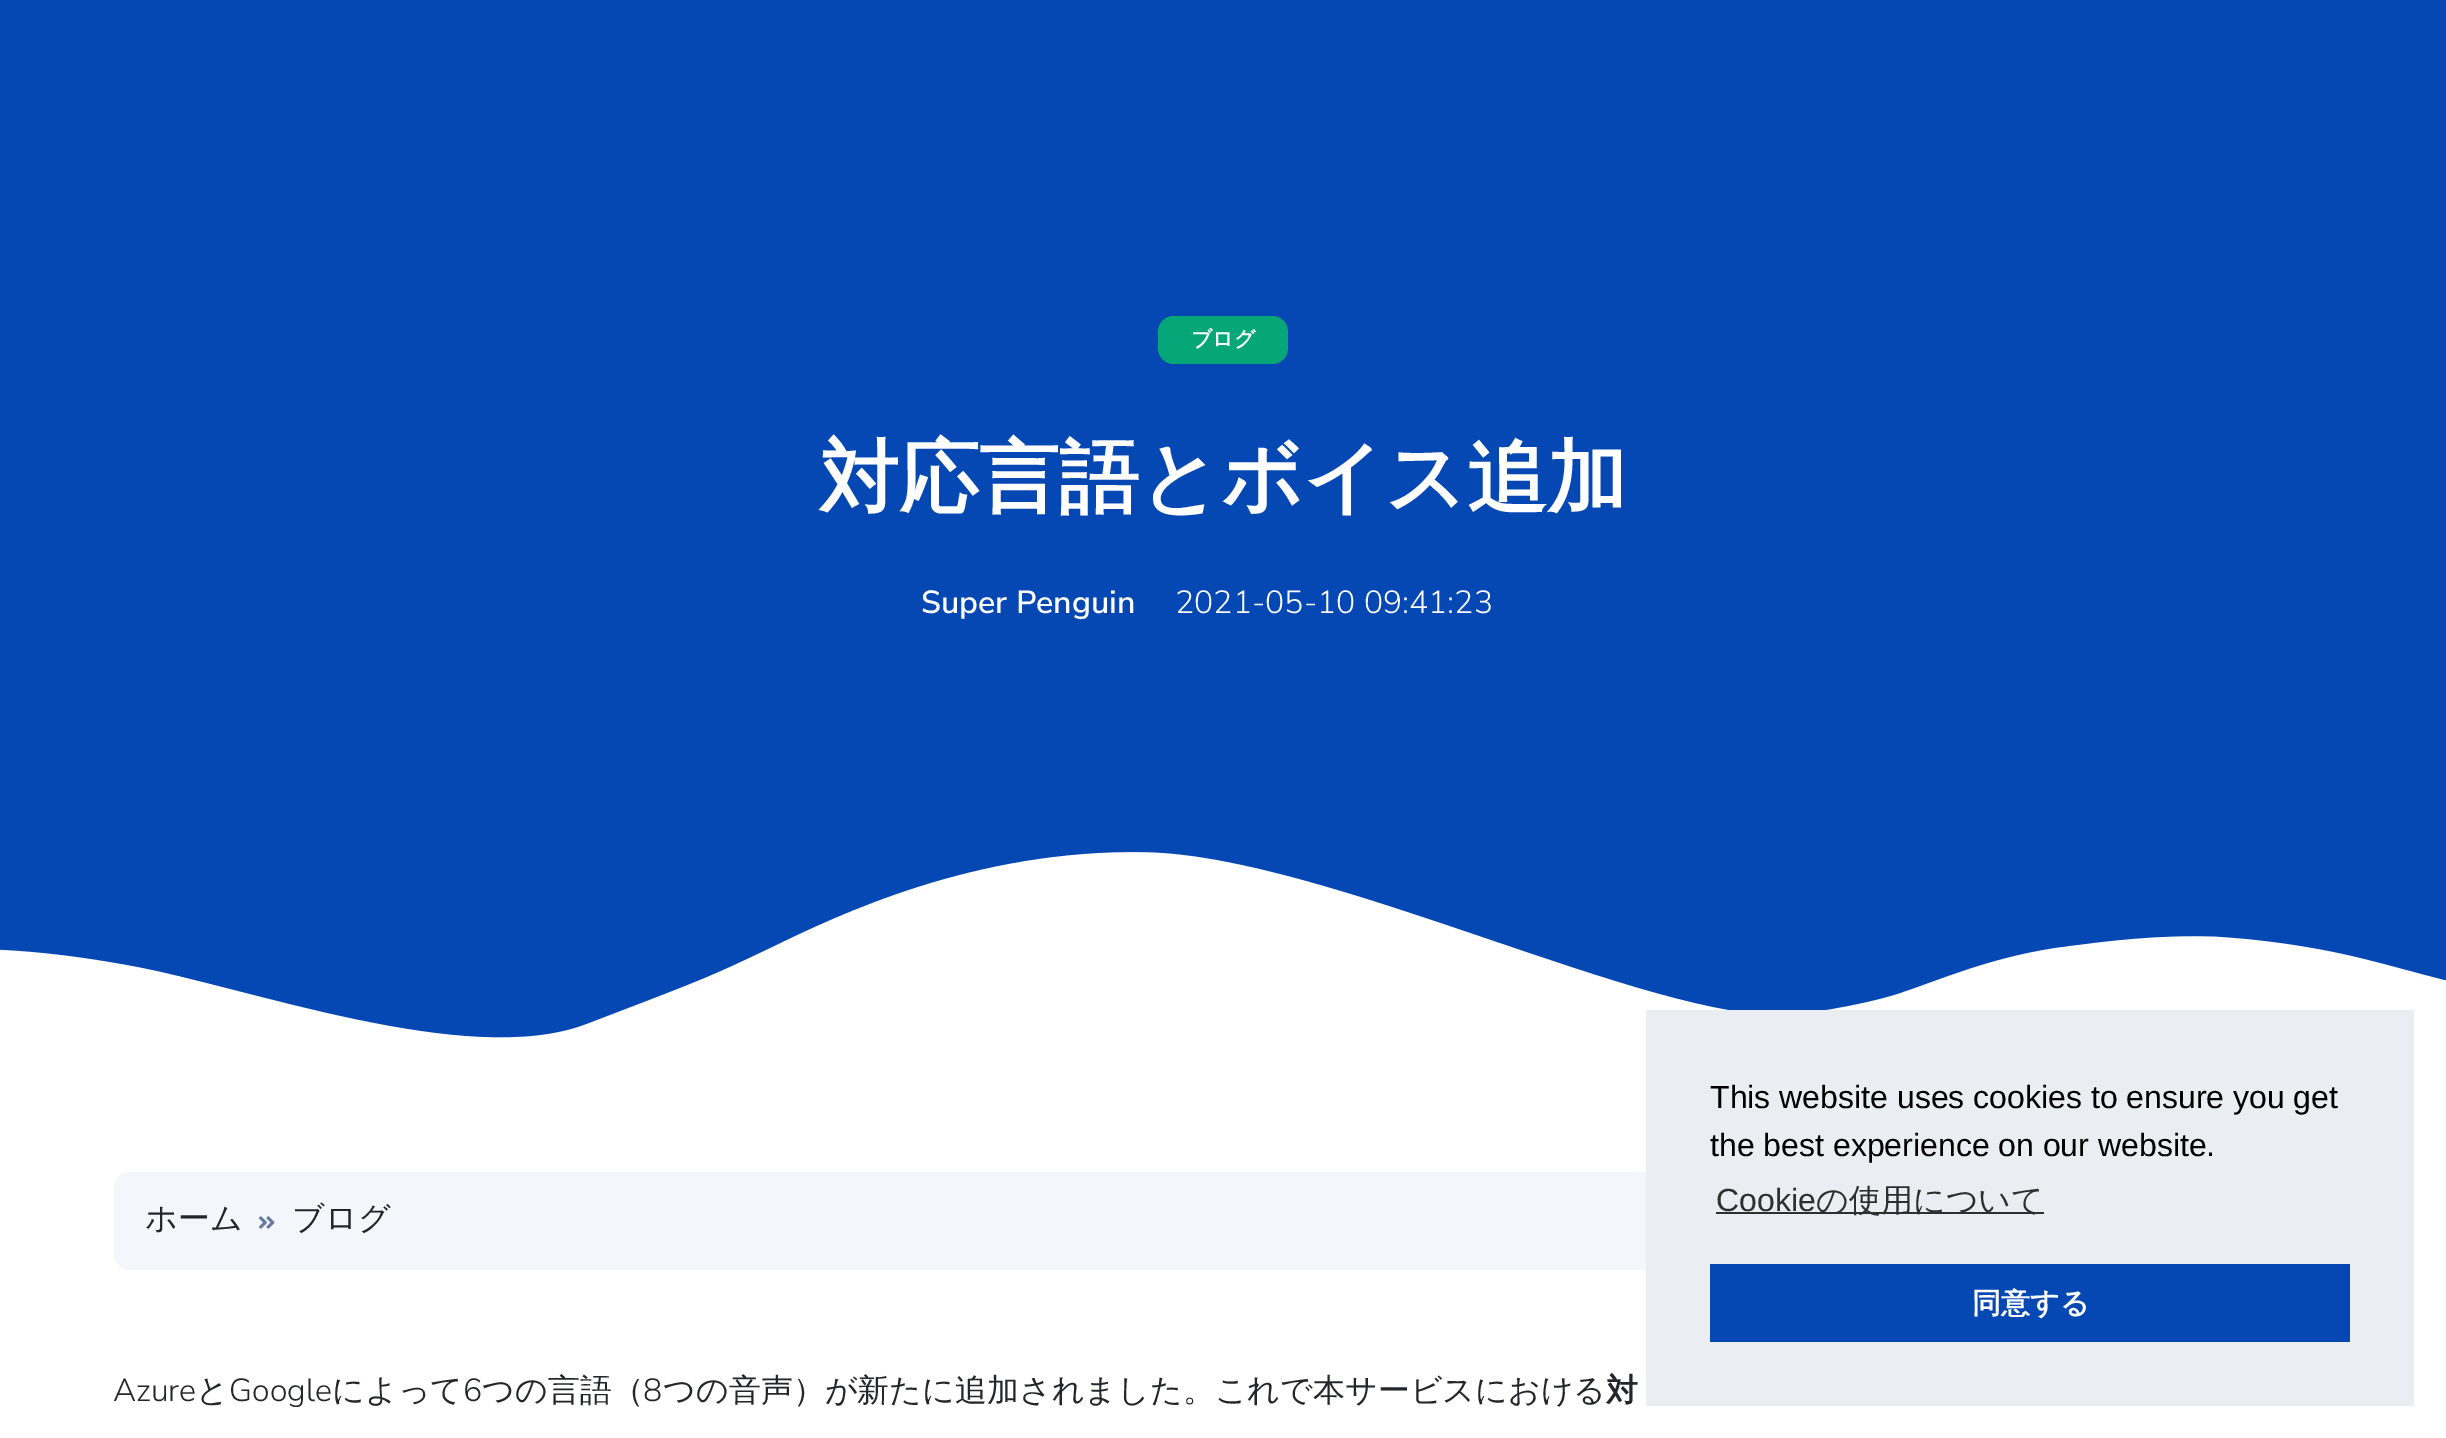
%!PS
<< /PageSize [2446 1438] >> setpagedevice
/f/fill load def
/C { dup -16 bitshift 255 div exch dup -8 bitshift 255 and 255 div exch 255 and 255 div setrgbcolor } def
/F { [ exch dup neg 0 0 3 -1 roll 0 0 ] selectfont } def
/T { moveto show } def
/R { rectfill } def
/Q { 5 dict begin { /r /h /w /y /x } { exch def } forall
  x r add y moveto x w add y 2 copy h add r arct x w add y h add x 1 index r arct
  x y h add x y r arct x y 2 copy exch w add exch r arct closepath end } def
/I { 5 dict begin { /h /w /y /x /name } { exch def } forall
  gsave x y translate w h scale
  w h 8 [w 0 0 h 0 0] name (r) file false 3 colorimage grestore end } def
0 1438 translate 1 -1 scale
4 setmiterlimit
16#FFFFFF C
0 0 2446 1438 R
16#0648B3 C
0 0 2446 1038 R
16#05A677 C
1158 316 130 48 16 Q f
/WenQuanYiZenHei-Bold 21 F
16#FFFFFF C
(ブログ) 1191 346 T
/WenQuanYiZenHei-Bold 80 F
(対応言語とボイス追加) 819 505 T
/NunitoSans-SemiBold 32 F
(Super Penguin) 921 613 T
/NunitoSans-Light 32 F
(2021-05-10 09:41:23) 1175 613 T
(1.rgb) 0 852 2446 224 I
16#F4F6FC C
114 1172 2220 98 16 Q f
/WenQuanYiZenHei-Medium 32 F
16#24262B C
(ホーム) 145 1229 T
(2.rgb) 259 1216 16 13 I
(ブログ) 292 1229 T
/NunitoSans-Light 32 F
(Azure) 113 1401 T
/WenQuanYiZenHei-Medium 32 F
(と) 196 1401 T
/NunitoSans-Light 32 F
(Google) 229 1401 T
/WenQuanYiZenHei-Medium 32 F
(によって) 332 1401 T
/NunitoSans-Light 32 F
(6) 463 1401 T
/WenQuanYiZenHei-Medium 32 F
(つの言語（) 482 1401 T
/NunitoSans-Light 32 F
(8) 643 1401 T
/WenQuanYiZenHei-Medium 32 F
(つの音声）が新たに追加されました。これで本サービスにおける) 663 1401 T
/WenQuanYiZenHei-Bold 32 F
(対) 1606 1401 T
16#EAEDF2 C
1646 1010 768 396 R
/LiberationSans-Regular 32 F
16#000000 C
(This website uses cookies to ensure you get) 1710 1108 T
(the best experience on our website.) 1710 1156 T
16#2F2F30 C
(Cookie) 1716 1211 T
1716 1212 328 2 R
/WenQuanYiZenHei-Medium 32 F
(の使用について) 1816 1211 T
16#0648B3 C
1710 1264 640 78 R
/WenQuanYiZenHei-Bold 29 F
16#FFFFFF C
(同意する) 1972 1313 T
showpage
